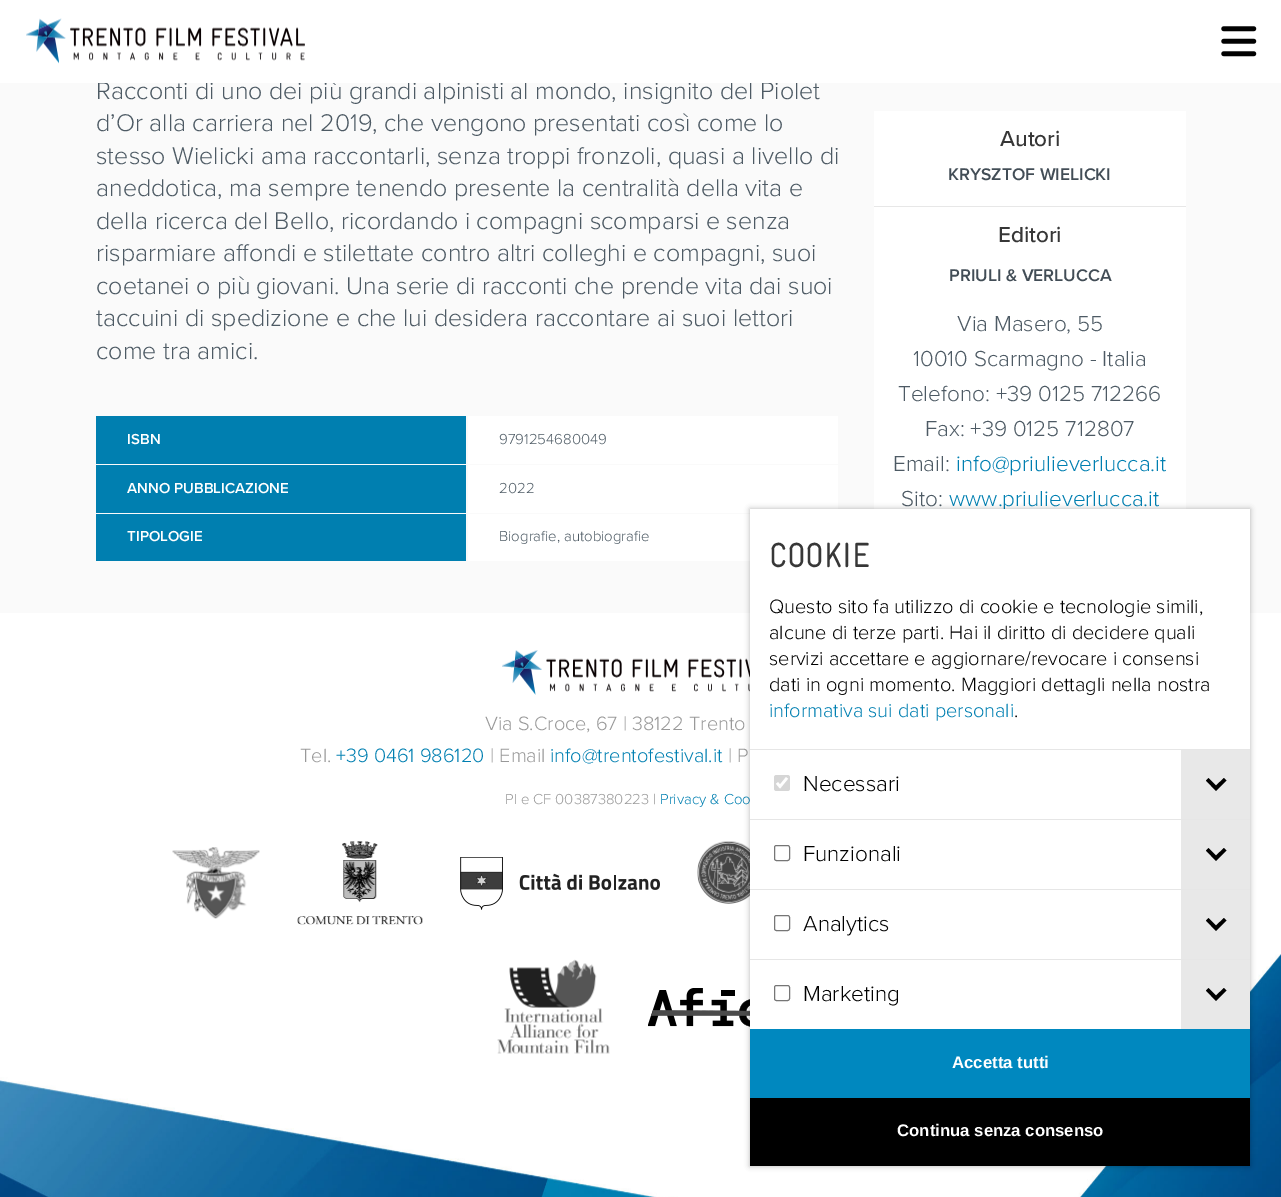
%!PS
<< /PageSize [1281 1197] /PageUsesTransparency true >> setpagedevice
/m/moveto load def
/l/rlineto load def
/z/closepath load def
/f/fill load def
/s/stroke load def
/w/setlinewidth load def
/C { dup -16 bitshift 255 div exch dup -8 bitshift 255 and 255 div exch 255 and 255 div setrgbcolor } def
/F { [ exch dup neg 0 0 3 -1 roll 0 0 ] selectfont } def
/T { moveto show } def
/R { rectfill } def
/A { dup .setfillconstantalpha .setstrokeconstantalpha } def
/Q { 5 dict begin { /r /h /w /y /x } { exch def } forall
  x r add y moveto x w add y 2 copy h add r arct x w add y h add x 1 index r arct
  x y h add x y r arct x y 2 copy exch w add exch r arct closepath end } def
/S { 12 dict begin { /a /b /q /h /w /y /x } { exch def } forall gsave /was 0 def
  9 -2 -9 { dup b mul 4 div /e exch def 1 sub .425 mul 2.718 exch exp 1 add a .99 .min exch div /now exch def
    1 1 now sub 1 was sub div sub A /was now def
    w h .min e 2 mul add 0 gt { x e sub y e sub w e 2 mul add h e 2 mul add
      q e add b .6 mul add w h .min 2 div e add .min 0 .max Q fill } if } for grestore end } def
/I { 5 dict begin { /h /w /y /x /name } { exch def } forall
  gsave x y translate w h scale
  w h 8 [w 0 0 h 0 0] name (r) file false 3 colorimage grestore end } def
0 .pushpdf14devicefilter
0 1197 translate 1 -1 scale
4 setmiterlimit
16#FAFAFA C
0 0 1281 1197 R
/ProximaNova-Light 25 F
16#4D5A64 C
(Racconti di uno dei più grandi alpinisti al mondo, insignito del Piolet) 96 99 T
16#FFFFFF C
0 0 1281 83 R
(1.rgb) 26 18 279 46 I
(2.rgb) 1221 26 36 31 I
16#4D5A64 C
(d’Or alla carriera nel 2019, che vengono presentati così come lo) 96 131 T
(stesso Wielicki ama raccontarli, senza troppi fronzoli, quasi a livello di) 96 164 T
(aneddotica, ma sempre tenendo presente la centralità della vita e) 96 196 T
(della ricerca del Bello, ricordando i compagni scomparsi e senza) 96 229 T
(risparmiare affondi e stilettate contro altri colleghi e compagni, suoi) 96 261 T
(coetanei o più giovani. Una serie di racconti che prende vita dai suoi) 96 294 T
(taccuini di spedizione e che lui desidera raccontare ai suoi lettori) 96 326 T
(come tra amici.) 96 359 T
16#FFFFFF C
874 111 312 398 R
/ProximaNova-Medium 22.5 F
16#373737 C
(Autori) 1000 146 T
/ProximaNova-SemiBold 17.5 F
16#424D56 C
(KRYSZTOF WIELICKI) 948 180 T
16#E7E7E7 C
874 206 312 1 R
/ProximaNova-Medium 22.5 F
16#373737 C
(Editori) 998 242 T
/ProximaNova-SemiBold 17.5 F
16#424D56 C
(PRIULI & VERLUCCA) 949 281 T
/ProximaNova-Light 22.5 F
16#4D5A64 C
(Via Masero, 55) 957 331 T
(10010 Scarmagno - Italia) 913 366 T
(Telefono: +39 0125 712266) 898 401 T
(Fax: +39 0125 712807) 925 436 T
(Email:) 893 471 T
16#007FB1 C
(info@priulieverlucca.it) 956 471 T
16#4D5A64 C
(Sito:) 901 506 T
16#007FB1 C
(www.priulieverlucca.it) 949 506 T
16#007FB0 C
96 416 370 48 R
/ProximaNova-SemiBold 15 F
16#FFFFFF C
(ISBN) 127 444 T
468 416 370 48 R
/ProximaNova-Light 15 F
16#4D5A64 C
(9791254680049) 499 444 T
16#007FB0 C
96 465 370 48 R
/ProximaNova-SemiBold 15 F
16#FFFFFF C
(ANNO PUBBLICAZIONE) 127 493 T
468 465 370 48 R
/ProximaNova-Light 15 F
16#4D5A64 C
(2022) 499 493 T
16#007FB0 C
96 514 370 47 R
/ProximaNova-SemiBold 15 F
16#FFFFFF C
(TIPOLOGIE) 127 541 T
468 514 282 47 R
/ProximaNova-Light 15 F
16#4D5A64 C
(Biografie, autobiografie) 499 541 T
16#FFFFFF C
0 613 1281 342 R
(3.rgb) 0 954 1281 243 I
(4.rgb) 502 650 248 45 I
/ProximaNova-Light 20 F
16#999999 C
(Via S.Croce, 67 | 38122 Trento) 485 730 T
(Tel.) 300 762 T
16#007FB1 C
(+39 0461 986120) 336 762 T
16#999999 C
(| Email) 490 762 T
16#007FB1 C
(info@trentofestival.it) 550 762 T
16#999999 C
(| P) 728 762 T
/ProximaNova-Light 15 F
(PI e CF 00387380223 |) 505 804 T
16#007FB1 C
(Privacy & Coo) 660 804 T
(5.rgb) 172 847 88 72 I
(6.rgb) 297 841 126 84 I
(7.rgb) 460 857 200 53 I
(8.rgb) 697 841 53 63 I
(9.rgb) 497 959 113 95 I
(10.rgb) 648 988 102 39 I
16#000000 C
750 509 500 657 0 3 .3 S
16#FFFFFF C
750 509 500 520 R
/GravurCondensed-Regular 35 F
16#373737 C
(COOKIE) 769 567 T
/ProximaNova-Light 20 F
16#000000 C
(Questo sito fa utilizzo di cookie e tecnologie simili,) 769 613 T
(alcune di terze parti. Hai il diritto di decidere quali) 769 639 T
(servizi accettare e aggiornare/revocare i consensi) 769 665 T
(dati in ogni momento. Maggiori dettagli nella nostra) 769 691 T
16#007FB1 C
(informativa sui dati personali) 769 717 T
16#000000 C
(.) 1014 717 T
16#E6E6E6 C
750 749 500 1 R
16#D6D6D6 C
774 775 16 16 2.5 Q f
16#FFFFFF C
2.6 w
777 783 m 3 3.5 l 7 -8.5 l s
/ProximaNova-Light 22.5 F
16#000000 C
(Necessari) 803 791 T
16#E8E8E8 C
1181 750 69 69 R
16#000000 C
1224 778 m 2.5 2.5 l -10.5 10.5 l -10 -10.5 l 2.5 -2.5 l 7.5 7.5 l z f
16#E6E6E6 C
750 819 500 1 R
16#767676 C
1 w
774.5 845.5 15 15 2 Q s
16#000000 C
(Funzionali) 803 861 T
16#E8E8E8 C
1181 820 69 69 R
16#000000 C
1224 848 m 2.5 2.5 l -10.5 10.5 l -10 -10.5 l 2.5 -2.5 l 7.5 7.5 l z f
16#E6E6E6 C
750 889 500 1 R
16#767676 C
774.5 915.5 15 15 2 Q s
16#000000 C
(Analytics) 803 931 T
16#E8E8E8 C
1181 890 69 69 R
16#000000 C
1224 918 m 2.5 2.5 l -10.5 10.5 l -10 -10.5 l 2.5 -2.5 l 7.5 7.5 l z f
16#E6E6E6 C
750 959 500 1 R
16#767676 C
774.5 985.5 15 15 2 Q s
16#000000 C
(Marketing) 803 1001 T
16#E8E8E8 C
1181 960 69 69 R
16#000000 C
1224 988 m 2.5 2.5 l -10.5 10.5 l -10 -10.5 l 2.5 -2.5 l 7.5 7.5 l z f
16#0088BF C
750 1029 500 69 R
/LiberationSans-Bold 16.75 F
16#FFFFFF C
(Accetta tutti) 952 1068 T
16#000000 C
750 1098 500 68 R
16#FFFFFF C
(Continua senza consenso) 897 1136 T
.poppdf14devicefilter showpage
